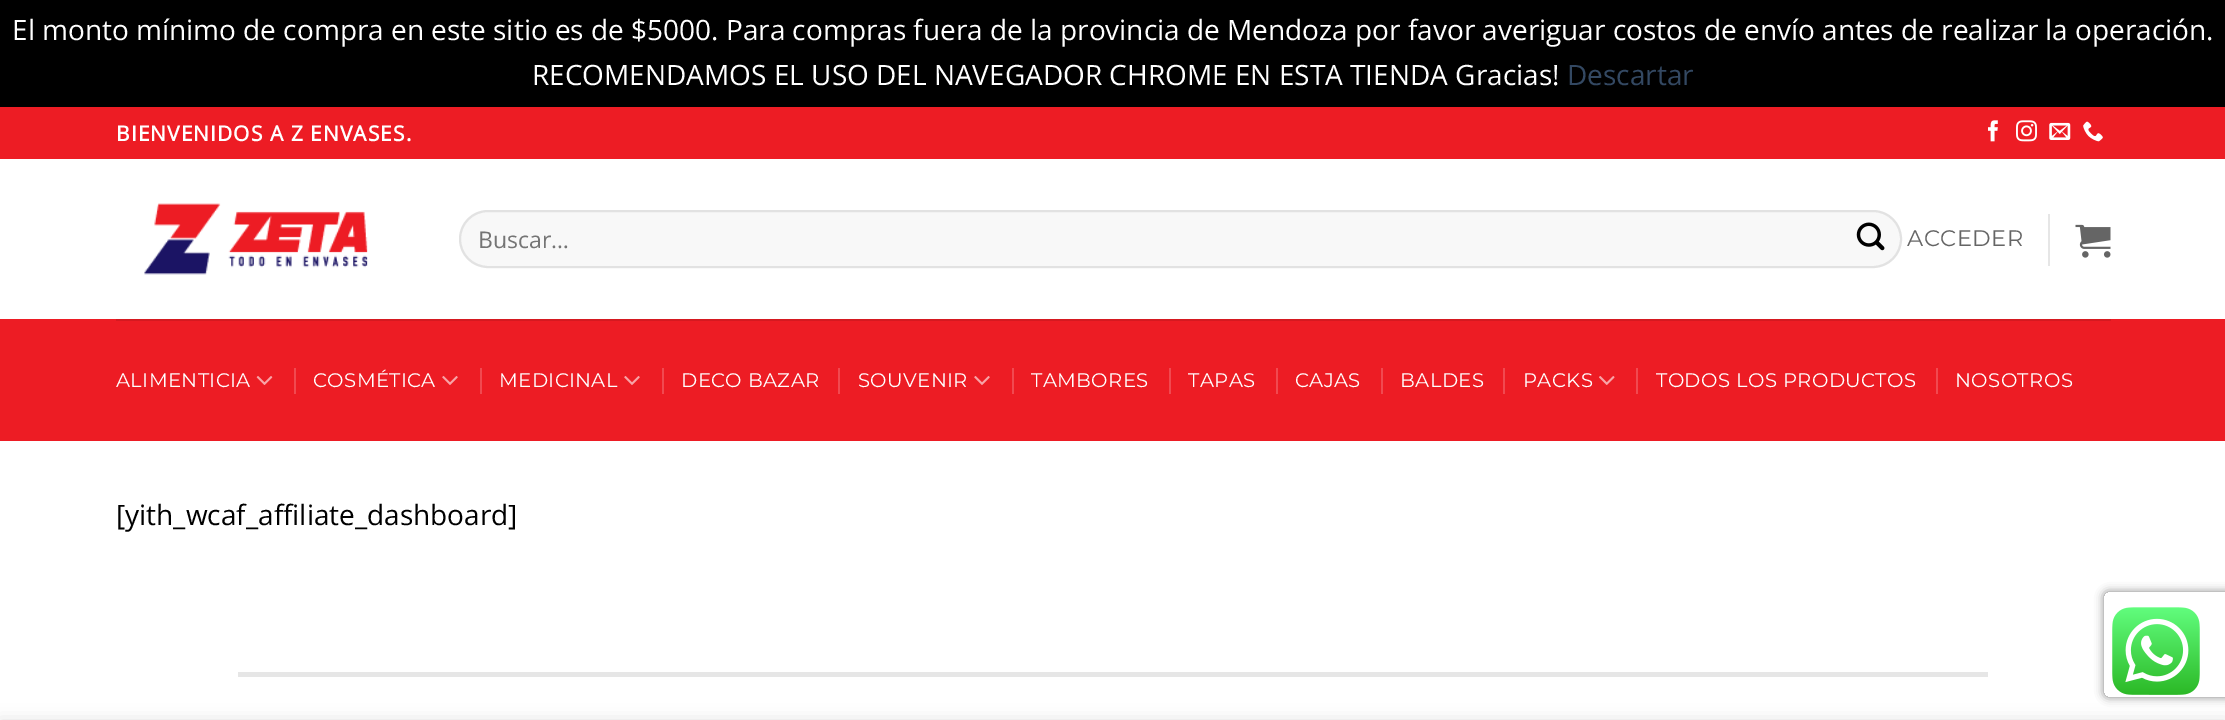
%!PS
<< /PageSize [2225 720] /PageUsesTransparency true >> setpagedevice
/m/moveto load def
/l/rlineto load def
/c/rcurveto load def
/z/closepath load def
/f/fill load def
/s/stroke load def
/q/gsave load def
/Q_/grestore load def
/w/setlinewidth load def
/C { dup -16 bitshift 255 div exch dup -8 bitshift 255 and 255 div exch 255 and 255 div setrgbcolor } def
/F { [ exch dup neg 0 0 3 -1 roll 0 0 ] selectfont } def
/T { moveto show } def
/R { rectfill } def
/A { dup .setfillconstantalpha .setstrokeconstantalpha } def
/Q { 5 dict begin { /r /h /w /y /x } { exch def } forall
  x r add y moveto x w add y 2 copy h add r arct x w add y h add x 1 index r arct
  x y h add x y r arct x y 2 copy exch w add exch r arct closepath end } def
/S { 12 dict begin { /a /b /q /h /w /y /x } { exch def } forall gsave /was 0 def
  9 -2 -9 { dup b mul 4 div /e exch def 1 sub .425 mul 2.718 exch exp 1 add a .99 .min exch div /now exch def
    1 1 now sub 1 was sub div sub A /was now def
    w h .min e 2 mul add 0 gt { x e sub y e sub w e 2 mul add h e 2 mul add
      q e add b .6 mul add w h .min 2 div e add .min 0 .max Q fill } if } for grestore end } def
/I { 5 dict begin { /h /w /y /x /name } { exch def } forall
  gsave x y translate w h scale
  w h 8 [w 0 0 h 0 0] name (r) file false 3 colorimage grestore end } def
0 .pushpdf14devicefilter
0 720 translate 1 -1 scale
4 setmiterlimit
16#000000 C
0 0 2225 720 R
/OpenSans-Regular 28 F
16#FFFFFF C
(El monto mínimo de compra en este sitio es de $5000. Para compras fuera de la provincia de Mendoza por favor averiguar costos de envío antes de realizar la operación.) 12 40 T
(RECOMENDAMOS EL USO DEL NAVEGADOR CHROME EN ESTA TIENDA Gracias!) 532 85 T
16#334862 C
(Descartar) 1567 85 T
16#FFFFFF C
0 159 2225 561 R
16#ED1C24 C
0 107 2225 52 R
/OpenSans-Bold 21 F
16#FFFFFF C
116 141 m 1.05 0 (BIENVENIDOS A Z ENVASES.) ashow
(1.rgb) 1988 120 10 22 I
(2.rgb) 2016 120 21 22 I
(3.rgb) 2049 122 22 18 I
(4.rgb) 2083 121 20 21 I
(5.rgb) 144 203 224 72 I
16#F8F8F8 C
459 210 1443 58 29 Q f
0.09 A
16#000000 C
2 w
460 211 1441 56 28 Q s
/OpenSans-Regular 23 F
1 A
16#757575 C
(Buscar…) 478 248 T
(6.rgb) 1856 222 29 29 I
/Montserrat-Thin 22.5 F
16#656565 C
1907 246 m .5 0 (ACCEDER) ashow
16#E6E6E6 C
2048 214 2 52 R
(7.rgb) 2075 224 36 34 I
16#ED1C24 C
0 319 2225 122 R
16#D51920 C
116 319 1995 2 R
/Montserrat-Thin 19.6 F
16#FFFFFF C
116 387 m .4 0 (ALIMENTICIA) ashow
(8.rgb) 256 376 17 9 I
16#F14950 C
294 368 2 26 R
16#FFFFFF C
313 387 m .4 0 (COSMÉTICA) ashow
(9.rgb) 442 376 16 9 I
16#F14950 C
480 368 2 26 R
16#FFFFFF C
499 387 m .4 0 (MEDICINAL) ashow
(9.rgb) 624 376 16 9 I
16#F14950 C
662 368 2 26 R
16#FFFFFF C
681 387 m .4 0 (DECO BAZAR) ashow
16#F14950 C
838 368 2 26 R
16#FFFFFF C
858 387 m .4 0 (SOUVENIR) ashow
(9.rgb) 974 376 16 9 I
16#F14950 C
1012 368 2 26 R
16#FFFFFF C
1031 387 m .4 0 (TAMBORES) ashow
16#F14950 C
1169 368 2 26 R
16#FFFFFF C
1188 387 m .4 0 (TAPAS) ashow
16#F14950 C
1276 368 2 26 R
16#FFFFFF C
1295 387 m .4 0 (CAJAS) ashow
16#F14950 C
1381 368 2 26 R
16#FFFFFF C
1400 387 m .4 0 (BALDES) ashow
16#F14950 C
1503 368 2 26 R
16#FFFFFF C
1523 387 m .4 0 (PACKS) ashow
(10.rgb) 1599 376 16 9 I
16#F14950 C
1636 368 2 26 R
16#FFFFFF C
1656 387 m .4 0 (TODOS LOS PRODUCTOS) ashow
16#F14950 C
1936 368 2 26 R
16#FFFFFF C
1955 387 m .4 0 (NOSOTROS) ashow
/OpenSans-Regular 28 F
16#000000 C
([yith_wcaf_affiliate_dashboard]) 116 525 T
16#E6E6E6 C
238 672 1750 5 R
q
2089 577 m 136 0 l 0 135 l -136 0 l z 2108 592 m 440 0 l 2 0 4 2 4 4 c 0 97 l 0 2 -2 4 -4 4 c -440 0 l -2 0 -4 -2 -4 -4 c 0 -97 l 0 -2 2 -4 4 -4 c z eoclip newpath
16#808080 C
2104 592 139 105 4 4.5 1 S
Q_
(11.rgb) 2112 607 88 88 I
16#000000 C
0 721 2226 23 0 8 .14 S
.poppdf14devicefilter showpage
